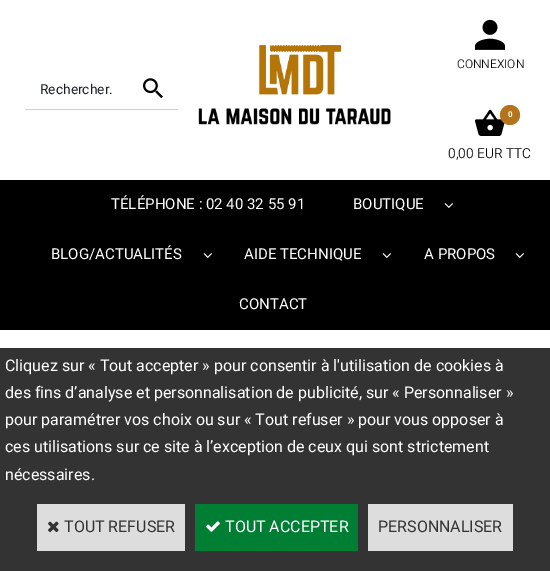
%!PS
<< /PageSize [550 571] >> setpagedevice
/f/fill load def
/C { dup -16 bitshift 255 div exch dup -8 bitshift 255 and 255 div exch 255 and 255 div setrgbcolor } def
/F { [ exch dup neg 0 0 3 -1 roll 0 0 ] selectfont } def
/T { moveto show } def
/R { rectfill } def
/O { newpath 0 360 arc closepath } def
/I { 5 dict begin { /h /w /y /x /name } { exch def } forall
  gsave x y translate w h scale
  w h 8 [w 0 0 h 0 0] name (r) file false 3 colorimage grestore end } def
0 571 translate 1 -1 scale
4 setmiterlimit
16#FFFFFF C
0 0 550 571 R
16#D0D0D0 C
25 109 153 1 R
/Heebo-Regular 13.75 F
16#1A1F26 C
(Rechercher.) 40 94 T
(1.rgb) 143 78 20 21 I
(2.rgb) 198 45 193 80 I
(3.rgb) 475 19 30 31 I
/Heebo-Light 12 F
16#000000 C
(CONNEXION) 457 68 T
(4.rgb) 475 109 30 27 I
16#B3741D C
510 115 10 O f
/Heebo-Bold 8 F
16#FFFFFF C
(0) 508 117 T
/Heebo-Light 13.75 F
16#000000 C
(0,00 EUR TTC) 448 158 T
0 180 550 150 R
/Heebo-Regular 15 F
16#FFFFFF C
(TÉLÉPHONE : 02 40 32 55 91) 111 209 T
(BOUTIQUE) 353 209 T
(5.rgb) 444 203 9 5 I
(BLOG/ACTUALITÉS) 51 259 T
(5.rgb) 203 253 9 5 I
(AIDE TECHNIQUE) 244 259 T
(5.rgb) 382 253 9 5 I
(A PROPOS) 424 259 T
(5.rgb) 515 253 9 5 I
(CONTACT) 239 309 T
16#333333 C
0 348 550 223 R
/Heebo-Regular 16 F
16#FFFFFF C
(Cliquez sur « Tout accepter » pour consentir à l'utilisation de cookies à) 5 371 T
(des fins d’analyse et personnalisation de publicité, sur « Personnaliser ») 5 398 T
(pour paramétrer vos choix ou sur « Tout refuser » pour vous opposer à) 5 425 T
(ces utilisations sur ce site à l’exception de ceux qui sont strictement) 5 452 T
(nécessaires.) 5 480 T
16#DDDDDD C
37 504 148 47 R
(6.rgb) 48 521 11 12 I
16#333333 C
(TOUT REFUSER) 64 532 T
16#007E33 C
195 504 163 47 R
(7.rgb) 206 521 14 11 I
16#FFFFFF C
(TOUT ACCEPTER) 225 532 T
16#DDDDDD C
368 504 145 47 R
16#333333 C
(PERSONNALISER) 378 532 T
showpage
